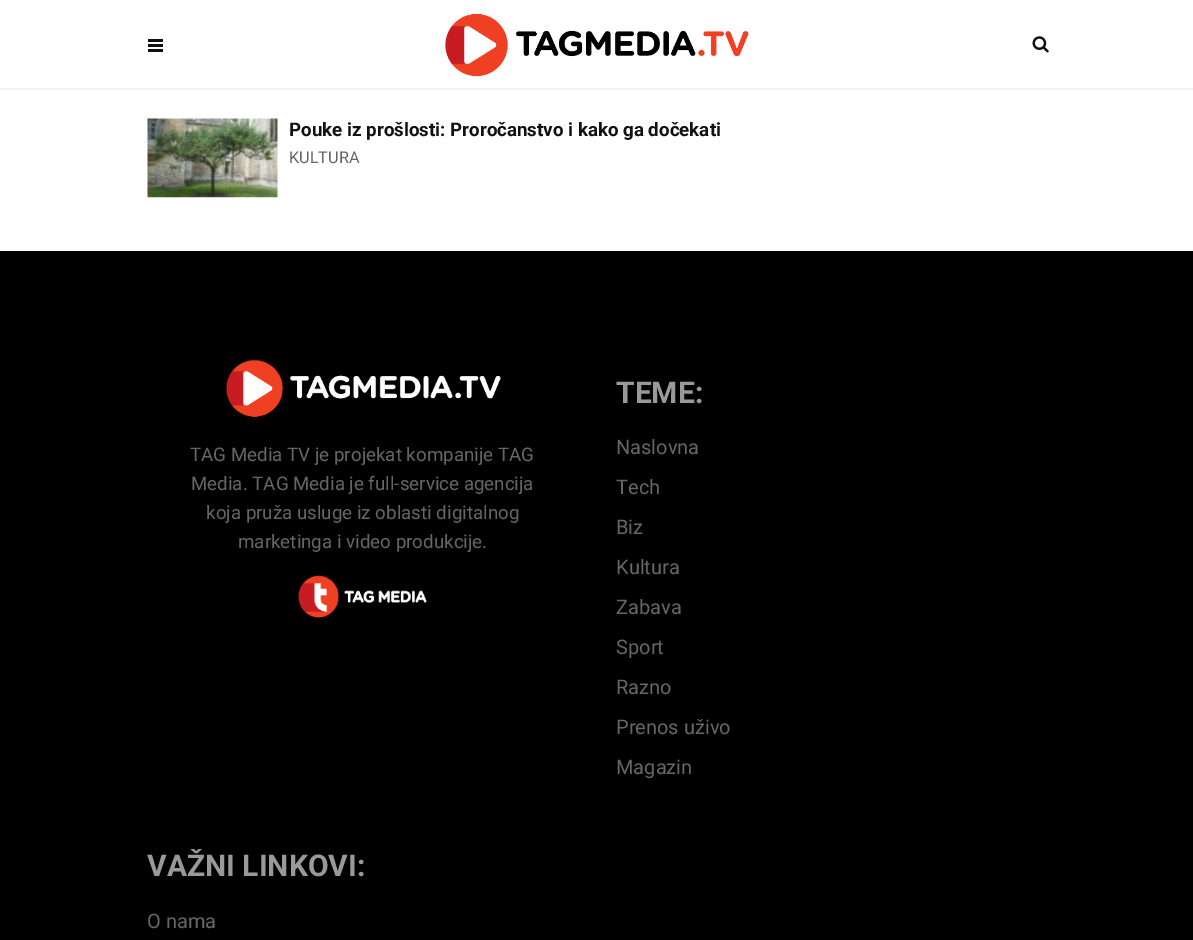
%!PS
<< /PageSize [1193 940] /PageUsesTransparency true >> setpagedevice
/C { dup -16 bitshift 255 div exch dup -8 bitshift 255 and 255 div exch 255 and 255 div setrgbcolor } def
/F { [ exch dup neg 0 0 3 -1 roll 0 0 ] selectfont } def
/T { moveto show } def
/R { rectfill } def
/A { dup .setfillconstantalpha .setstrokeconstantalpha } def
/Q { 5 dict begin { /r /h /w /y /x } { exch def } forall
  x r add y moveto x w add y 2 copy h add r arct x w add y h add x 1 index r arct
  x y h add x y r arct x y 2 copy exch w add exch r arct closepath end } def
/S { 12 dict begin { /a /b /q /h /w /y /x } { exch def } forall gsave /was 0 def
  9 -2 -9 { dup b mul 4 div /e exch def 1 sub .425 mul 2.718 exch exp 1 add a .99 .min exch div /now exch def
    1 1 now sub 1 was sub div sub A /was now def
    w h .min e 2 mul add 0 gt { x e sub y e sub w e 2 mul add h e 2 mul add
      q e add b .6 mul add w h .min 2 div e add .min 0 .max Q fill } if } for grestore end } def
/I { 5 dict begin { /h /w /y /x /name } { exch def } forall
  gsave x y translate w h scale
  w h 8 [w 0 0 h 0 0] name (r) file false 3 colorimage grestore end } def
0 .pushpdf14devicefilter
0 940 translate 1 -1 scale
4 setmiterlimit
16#FFFFFF C
0 0 1193 940 R
16#EAEAEA C
0 1 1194 88 0 1 1 S
16#FFFFFF C
0 0 1193 88 R
16#111111 C
148 39 15 3 R
148 44 15 3 R
148 49 15 3 R
(1.rgb) 445 13 304 64 I
(2.rgb) 1032 36 17 17 I
(3.rgb) 147 118 131 80 I
/Roboto-Bold 18.75 F
(Pouke iz prošlosti: Proročanstvo i kako ga dočekati) 289 136 T
/Roboto-Regular 16.25 F
16#666666 C
(KULTURA) 289 163 T
16#000000 C
0 251 1193 689 R
(4.rgb) 226 359 275 58 I
/Roboto-Regular 18.75 F
16#666666 C
(TAG Media TV je projekat kompanije TAG) 190 461 T
(Media. TAG Media je full-service agencija) 191 490 T
(koja pruža usluge iz oblasti digitalnog) 206 519 T
(marketinga i video produkcije.) 238 548 T
(5.rgb) 298 575 129 43 I
/Roboto-Bold 30 F
16#999999 C
(TEME:) 616 403 T
/Roboto-Regular 20 F
16#666666 C
(Naslovna) 616 454 T
(Tech) 616 494 T
(Biz) 616 534 T
(Kultura) 616 574 T
(Zabava) 616 614 T
(Sport) 616 654 T
(Razno) 616 694 T
(Prenos uživo) 616 734 T
(Magazin) 616 774 T
/Roboto-Bold 30 F
16#999999 C
(VAŽNI LINKOVI:) 147 876 T
/Roboto-Regular 20 F
16#666666 C
(O nama) 147 928 T
.poppdf14devicefilter showpage
